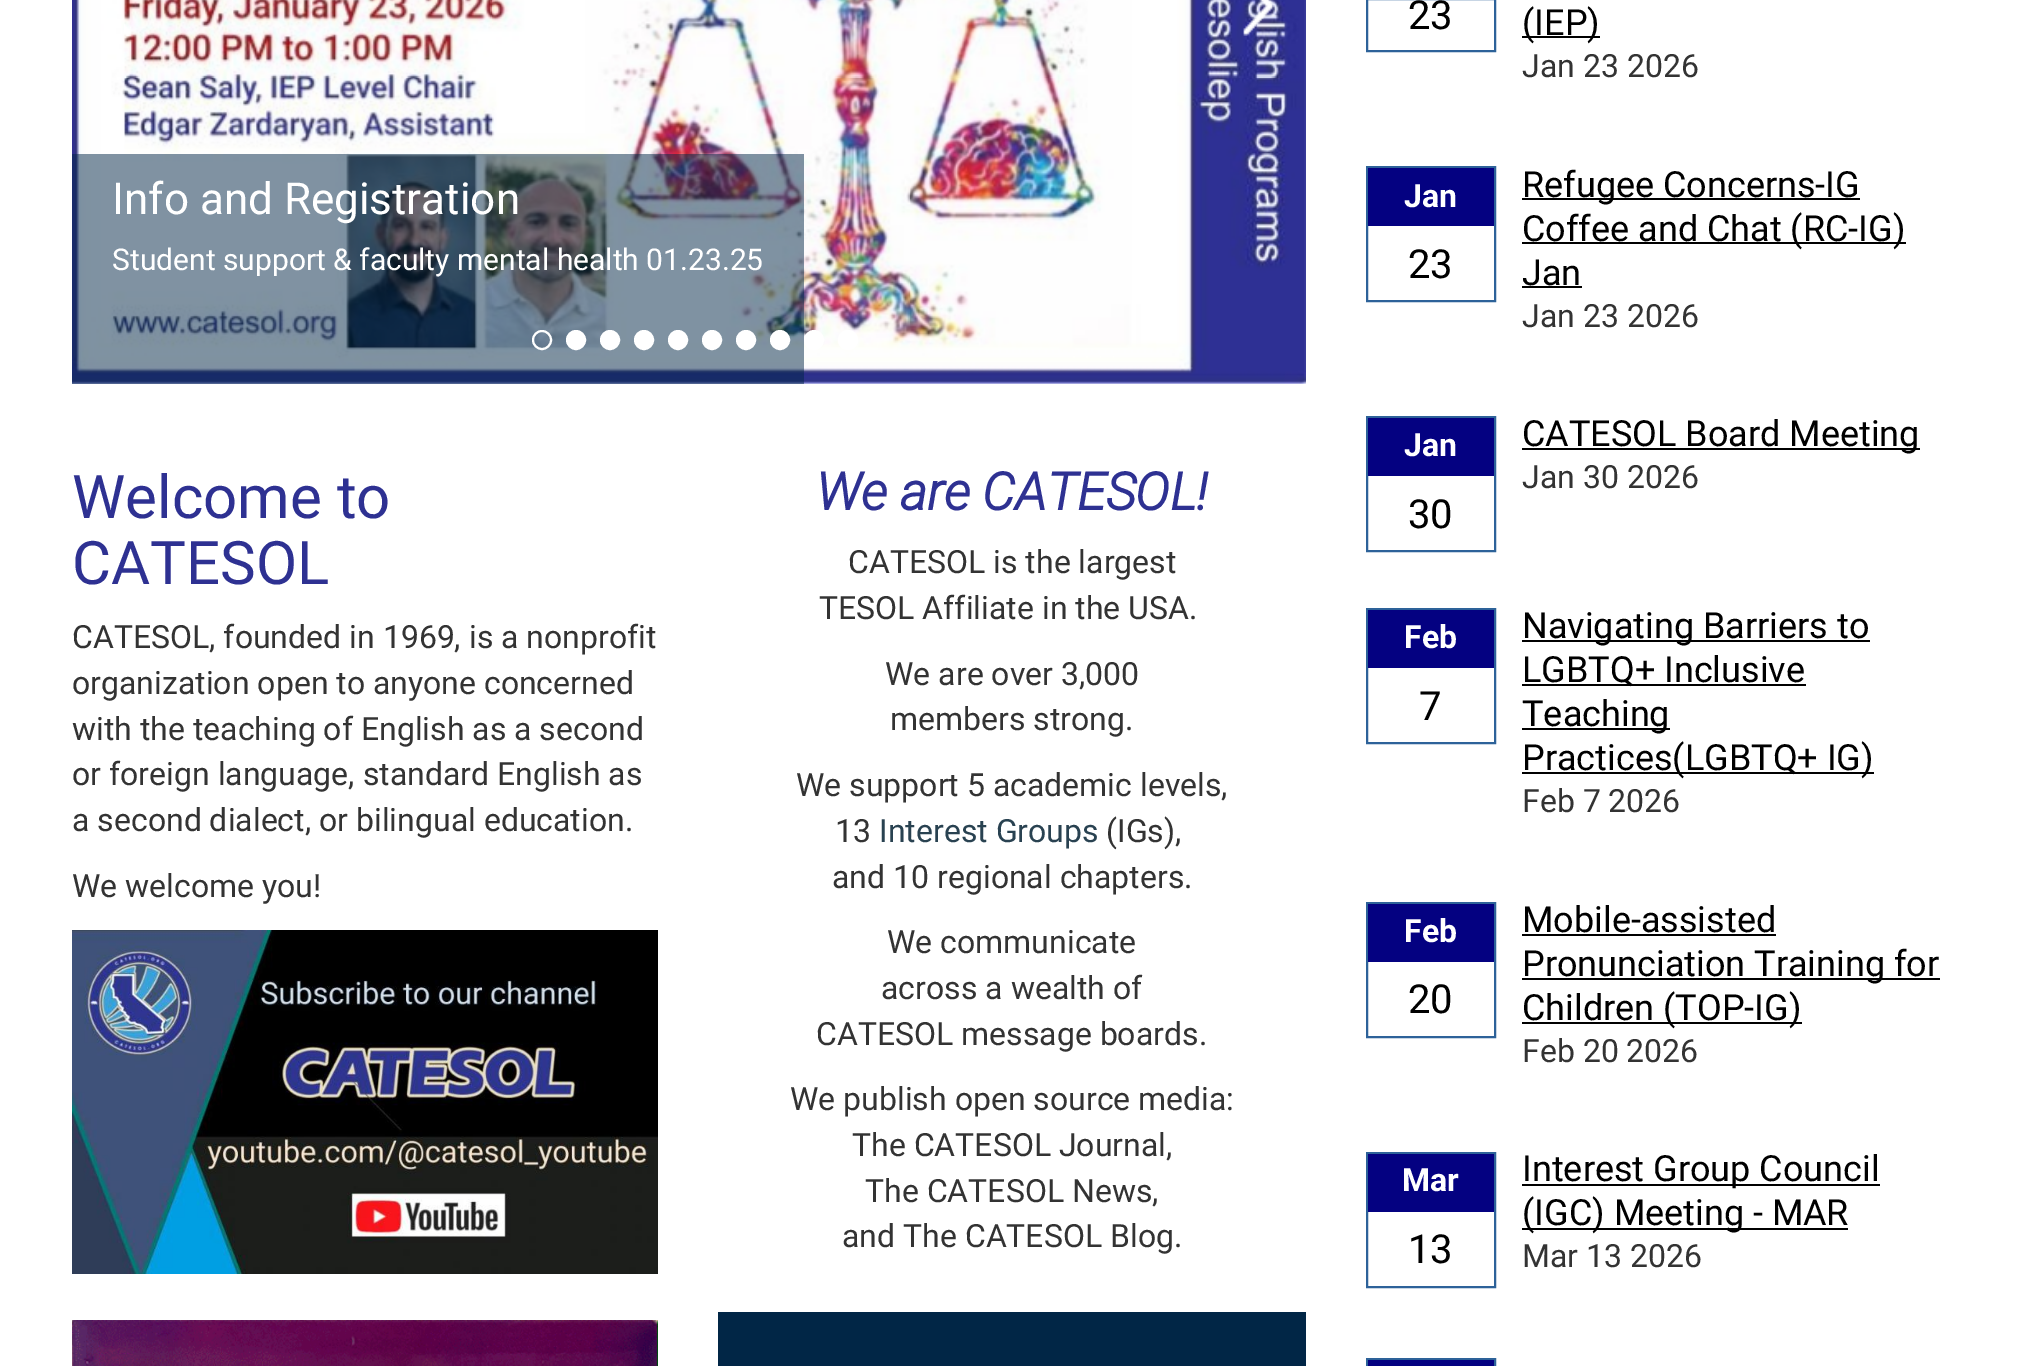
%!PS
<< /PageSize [2024 1366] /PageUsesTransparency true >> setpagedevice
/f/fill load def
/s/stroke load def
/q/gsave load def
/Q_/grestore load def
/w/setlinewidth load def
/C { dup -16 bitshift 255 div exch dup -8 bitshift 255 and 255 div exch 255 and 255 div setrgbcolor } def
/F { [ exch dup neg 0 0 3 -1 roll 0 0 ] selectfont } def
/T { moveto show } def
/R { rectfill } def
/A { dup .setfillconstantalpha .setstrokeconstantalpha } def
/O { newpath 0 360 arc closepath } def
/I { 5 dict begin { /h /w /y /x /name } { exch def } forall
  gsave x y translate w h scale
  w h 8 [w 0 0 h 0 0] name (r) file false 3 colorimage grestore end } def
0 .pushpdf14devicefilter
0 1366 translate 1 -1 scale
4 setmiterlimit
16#FFFFFF C
0 0 2024 1366 R
(3.rgb) 72 0 1234 384 I
(1.rgb) 124 24 7 12 I
(2.rgb) 1243 0 31 36 I
0.5 A
16#012646 C
72 154 732 230 R
/Roboto-Regular 44 F
1 A
16#FFFFFF C
(Info and Registration) 112 214 T
/Roboto-Regular 30 F
(Student support & faculty mental health 01.23.25) 112 270 T
2 w
542 340 9 O s
576 340 9 O q f Q_
s
610 340 9 O q f Q_
s
644 340 9 O q f Q_
s
678 340 9 O q f Q_
s
712 340 9 O q f Q_
s
746 340 9 O q f Q_
s
780 340 9 O q f Q_
s
814 340 9 O q f Q_
s
848 340 10 O f
/Roboto-Regular 60 F
16#2E3192 C
(Welcome to) 72 518 T
(CATESOL) 72 584 T
/Roboto-Regular 32 F
16#333333 C
(CATESOL, founded in 1969, is a nonprofit) 72 648 T
(organization open to anyone concerned) 72 694 T
(with the teaching of English as a second) 72 740 T
(or foreign language, standard English as) 72 785 T
(a second dialect, or bilingual education.) 72 831 T
(We welcome you!) 72 897 T
(4.rgb) 72 930 586 344 I
(5.rgb) 72 1320 586 46 I
/Roboto-BoldItalic 52 F
16#2E3192 C
(We are CATESOL!) 816 510 T
/Roboto-Regular 32 F
16#333333 C
(CATESOL is the largest) 848 573 T
(TESOL Affiliate in the USA.) 819 619 T
(We are over 3,000) 885 685 T
(members strong.) 890 730 T
(We support 5 academic levels,) 796 796 T
(13) 835 842 T
16#294251 C
(Interest Groups) 879 842 T
16#333333 C
(\(IGs\),) 1106 842 T
(and 10 regional chapters.) 832 888 T
(We communicate) 887 953 T
(across a wealth of) 881 999 T
(CATESOL message boards.) 816 1045 T
(We publish open source media:) 790 1110 T
(The CATESOL Journal,) 852 1156 T
(The CATESOL News,) 865 1202 T
(and The CATESOL Blog.) 842 1247 T
16#012646 C
718 1312 588 54 R
16#2D6299 C
1367 -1 128 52 rectstroke
/Roboto-Regular 40 F
16#000000 C
(23) 1408 29 T
1522 36 78 2 R
/Roboto-Regular 36 F
(\(IEP\)) 1522 35 T
/Roboto-Regular 32 F
16#333333 C
(Jan 23 2026) 1522 77 T
16#2D6299 C
1367 167 128 134 rectstroke
16#040181 C
1368 168 126 58 R
/Roboto-Bold 32 F
16#FFFFFF C
(Jan) 1404 207 T
/Roboto-Regular 40 F
16#000000 C
(23) 1408 278 T
1522 198 338 2 R
/Roboto-Regular 36 F
(Refugee Concerns-IG) 1522 197 T
1522 242 384 2 R
(Coffee and Chat \(RC-IG\)) 1522 241 T
(Jan) 1522 285 T
1522 286 60 2 R
/Roboto-Regular 32 F
16#333333 C
(Jan 23 2026) 1522 327 T
16#2D6299 C
1367 417 128 134 rectstroke
16#040181 C
1368 418 126 58 R
/Roboto-Bold 32 F
16#FFFFFF C
(Jan) 1404 456 T
/Roboto-Regular 40 F
16#000000 C
(30) 1408 528 T
1522 448 398 2 R
/Roboto-Regular 36 F
(CATESOL Board Meeting) 1522 446 T
/Roboto-Regular 32 F
16#333333 C
(Jan 30 2026) 1522 488 T
16#2D6299 C
1367 609 128 134 rectstroke
16#040181 C
1368 610 126 58 R
/Roboto-Bold 32 F
16#FFFFFF C
(Feb) 1404 648 T
/Roboto-Regular 40 F
16#000000 C
(7) 1419 720 T
1522 640 348 2 R
/Roboto-Regular 36 F
(Navigating Barriers to) 1522 638 T
1522 684 284 2 R
(LGBTQ+ Inclusive) 1522 682 T
1522 728 148 2 R
(Teaching) 1522 726 T
1522 772 352 2 R
(Practices\(LGBTQ+ IG\)) 1522 770 T
/Roboto-Regular 32 F
16#333333 C
(Feb 7 2026) 1522 812 T
16#2D6299 C
1367 903 128 134 rectstroke
16#040181 C
1368 904 126 58 R
/Roboto-Bold 32 F
16#FFFFFF C
(Feb) 1404 942 T
/Roboto-Regular 40 F
16#000000 C
(20) 1408 1013 T
/Roboto-Regular 36 F
(Mobile-assisted) 1522 932 T
1522 934 254 2 R
1522 978 418 2 R
(Pronunciation Training for) 1522 976 T
1522 1022 280 2 R
(Children \(TOP-IG\)) 1522 1020 T
/Roboto-Regular 32 F
16#333333 C
(Feb 20 2026) 1522 1062 T
16#2D6299 C
1367 1153 128 134 rectstroke
16#040181 C
1368 1154 126 58 R
/Roboto-Bold 32 F
16#FFFFFF C
(Mar) 1402 1191 T
/Roboto-Regular 40 F
16#000000 C
(13) 1408 1263 T
1522 1184 358 2 R
/Roboto-Regular 36 F
(Interest Group Council) 1522 1181 T
1522 1228 326 2 R
(\(IGC\) Meeting - MAR) 1522 1225 T
/Roboto-Regular 32 F
16#333333 C
(Mar 13 2026) 1522 1267 T
16#2D6299 C
1367 1359 128 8 rectstroke
16#040181 C
1368 1360 126 6 R
.poppdf14devicefilter showpage
